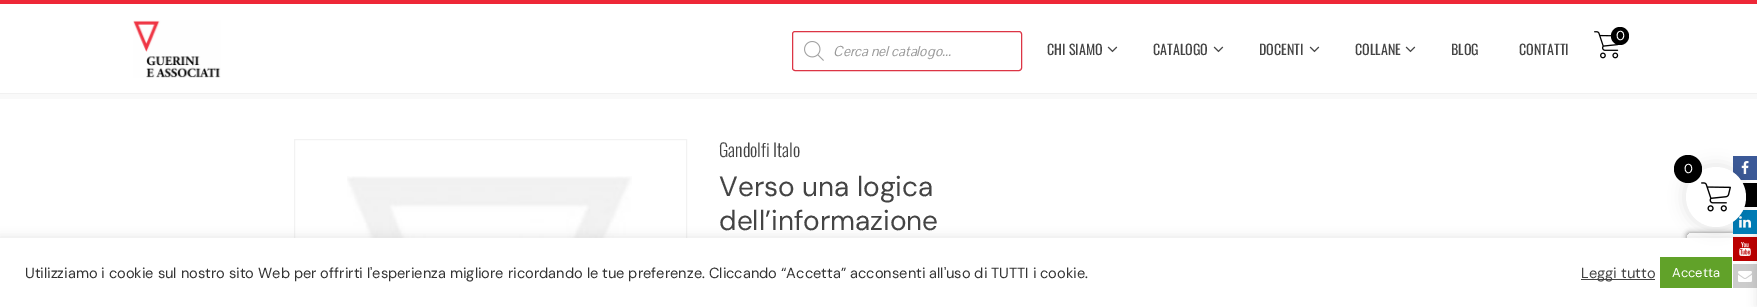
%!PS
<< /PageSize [1757 307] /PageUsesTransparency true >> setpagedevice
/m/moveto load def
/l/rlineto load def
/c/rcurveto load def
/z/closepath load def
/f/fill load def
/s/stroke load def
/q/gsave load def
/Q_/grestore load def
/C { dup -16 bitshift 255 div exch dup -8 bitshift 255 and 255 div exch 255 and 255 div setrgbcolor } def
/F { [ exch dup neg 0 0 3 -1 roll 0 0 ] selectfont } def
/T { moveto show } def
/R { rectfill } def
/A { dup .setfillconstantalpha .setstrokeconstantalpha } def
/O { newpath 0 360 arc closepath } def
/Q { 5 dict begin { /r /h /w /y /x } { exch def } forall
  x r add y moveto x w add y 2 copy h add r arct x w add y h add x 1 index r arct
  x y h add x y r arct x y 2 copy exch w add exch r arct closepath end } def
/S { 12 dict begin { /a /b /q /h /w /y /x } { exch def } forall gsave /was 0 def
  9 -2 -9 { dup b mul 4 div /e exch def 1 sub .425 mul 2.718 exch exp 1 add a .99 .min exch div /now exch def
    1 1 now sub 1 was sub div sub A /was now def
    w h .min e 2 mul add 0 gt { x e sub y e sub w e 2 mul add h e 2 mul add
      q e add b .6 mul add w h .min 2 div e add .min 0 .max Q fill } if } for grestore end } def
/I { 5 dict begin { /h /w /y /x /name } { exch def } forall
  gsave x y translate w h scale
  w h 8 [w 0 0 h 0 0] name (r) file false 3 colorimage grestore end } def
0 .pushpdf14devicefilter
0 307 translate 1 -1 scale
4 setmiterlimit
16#FFFFFF C
0 0 1757 307 R
16#EE2737 C
0 0 1757 4 R
16#F1F1F1 C
0 93 1757 1 R
(1.rgb) 133 20 88 58 I
(2.rgb) 1594 31 26 28 I
16#000000 C
1620 36 9 O f
/DMSans-Regular 13 F
16#FFFFFF C
(0) 1616 40 T
16#DC3545 C
792.5 31.5 229 39 2.5 Q s
(3.rgb) 804 41 20 20 I
/PontanoSans-Italic 14 F
16#999999 C
(Cerca nel catalogo...) 833 56 T
/Oswald-Regular 14 F
16#444444 C
(CHI SIAMO) 1047 55 T
(4.rgb) 1107 46 11 7 I
(CATALOGO) 1153 55 T
(4.rgb) 1213 46 11 7 I
(DOCENTI) 1259 55 T
(4.rgb) 1309 46 11 7 I
(COLLANE) 1355 55 T
(4.rgb) 1405 46 11 7 I
(BLOG) 1451 55 T
(CONTATTI) 1519 55 T
16#F9F9F9 C
0 94 1757 5 R
16#F2F2F2 C
294.5 139.5 392 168 rectstroke
(5.rgb) 347 176 285 62 I
/Oswald-Light 18 F
16#444444 C
(Gandolfi Italo) 719 157 T
/DMSans-Regular 28 F
(Verso una logica) 719 196 T
(dell’informazione) 719 230 T
16#3B5998 C
1733 156 24 24 R
(7.rgb) 1741 161 8 13 I
16#000000 C
1742 183 15 24 R
q
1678 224 m 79 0 l 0 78 l -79 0 l z 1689 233 m 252 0 l 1 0 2 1 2 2 c 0 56 l 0 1 -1 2 -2 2 c -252 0 l -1 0 -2 -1 -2 -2 c 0 -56 l 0 -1 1 -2 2 -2 c z eoclip newpath
16#808080 C
1687 233 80 60 2 2.5 1 S
Q_
16#ACABAB C
0 237 1757 69 0 5 .3 S
16#007BB6 C
1733 210 24 24 R
(8.rgb) 1739 216 12 12 I
16#FFFFFF C
0 238 1757 69 R
16#BB0000 C
1733 237 24 24 R
(9.rgb) 1739 242 12 14 I
16#000000 C
1684 165 64 64 32 7.5 .1 S
16#CCCCCC C
1733 264 24 24 R
(10.rgb) 1738 271 14 11 I
16#000000 C
1757 233 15 73 0 5 .1 S
16#FFFFFF C
1716 197 30 O f
(6.rgb) 1701 182 30 30 I
16#000000 C
1688 169 14 O f
/DMSans-Regular 13 F
16#FFFFFF C
(0) 1684 173 T
/DMSans-Regular 14.67 F
16#333333 C
(Utilizziamo i cookie sul nostro sito Web per offrirti l'esperienza migliore ricordando le tue preferenze. Cliccando “Accetta” acconsenti all'uso di TUTTI i cookie.) 25 278 T
16#444444 C
1581 279 74 1 R
(Leggi tutto) 1581 278 T
16#61A229 C
1660 257 72 31 R
/DMSans-Regular 13 F
16#FFFFFF C
(Accetta) 1672 277 T
.poppdf14devicefilter showpage
